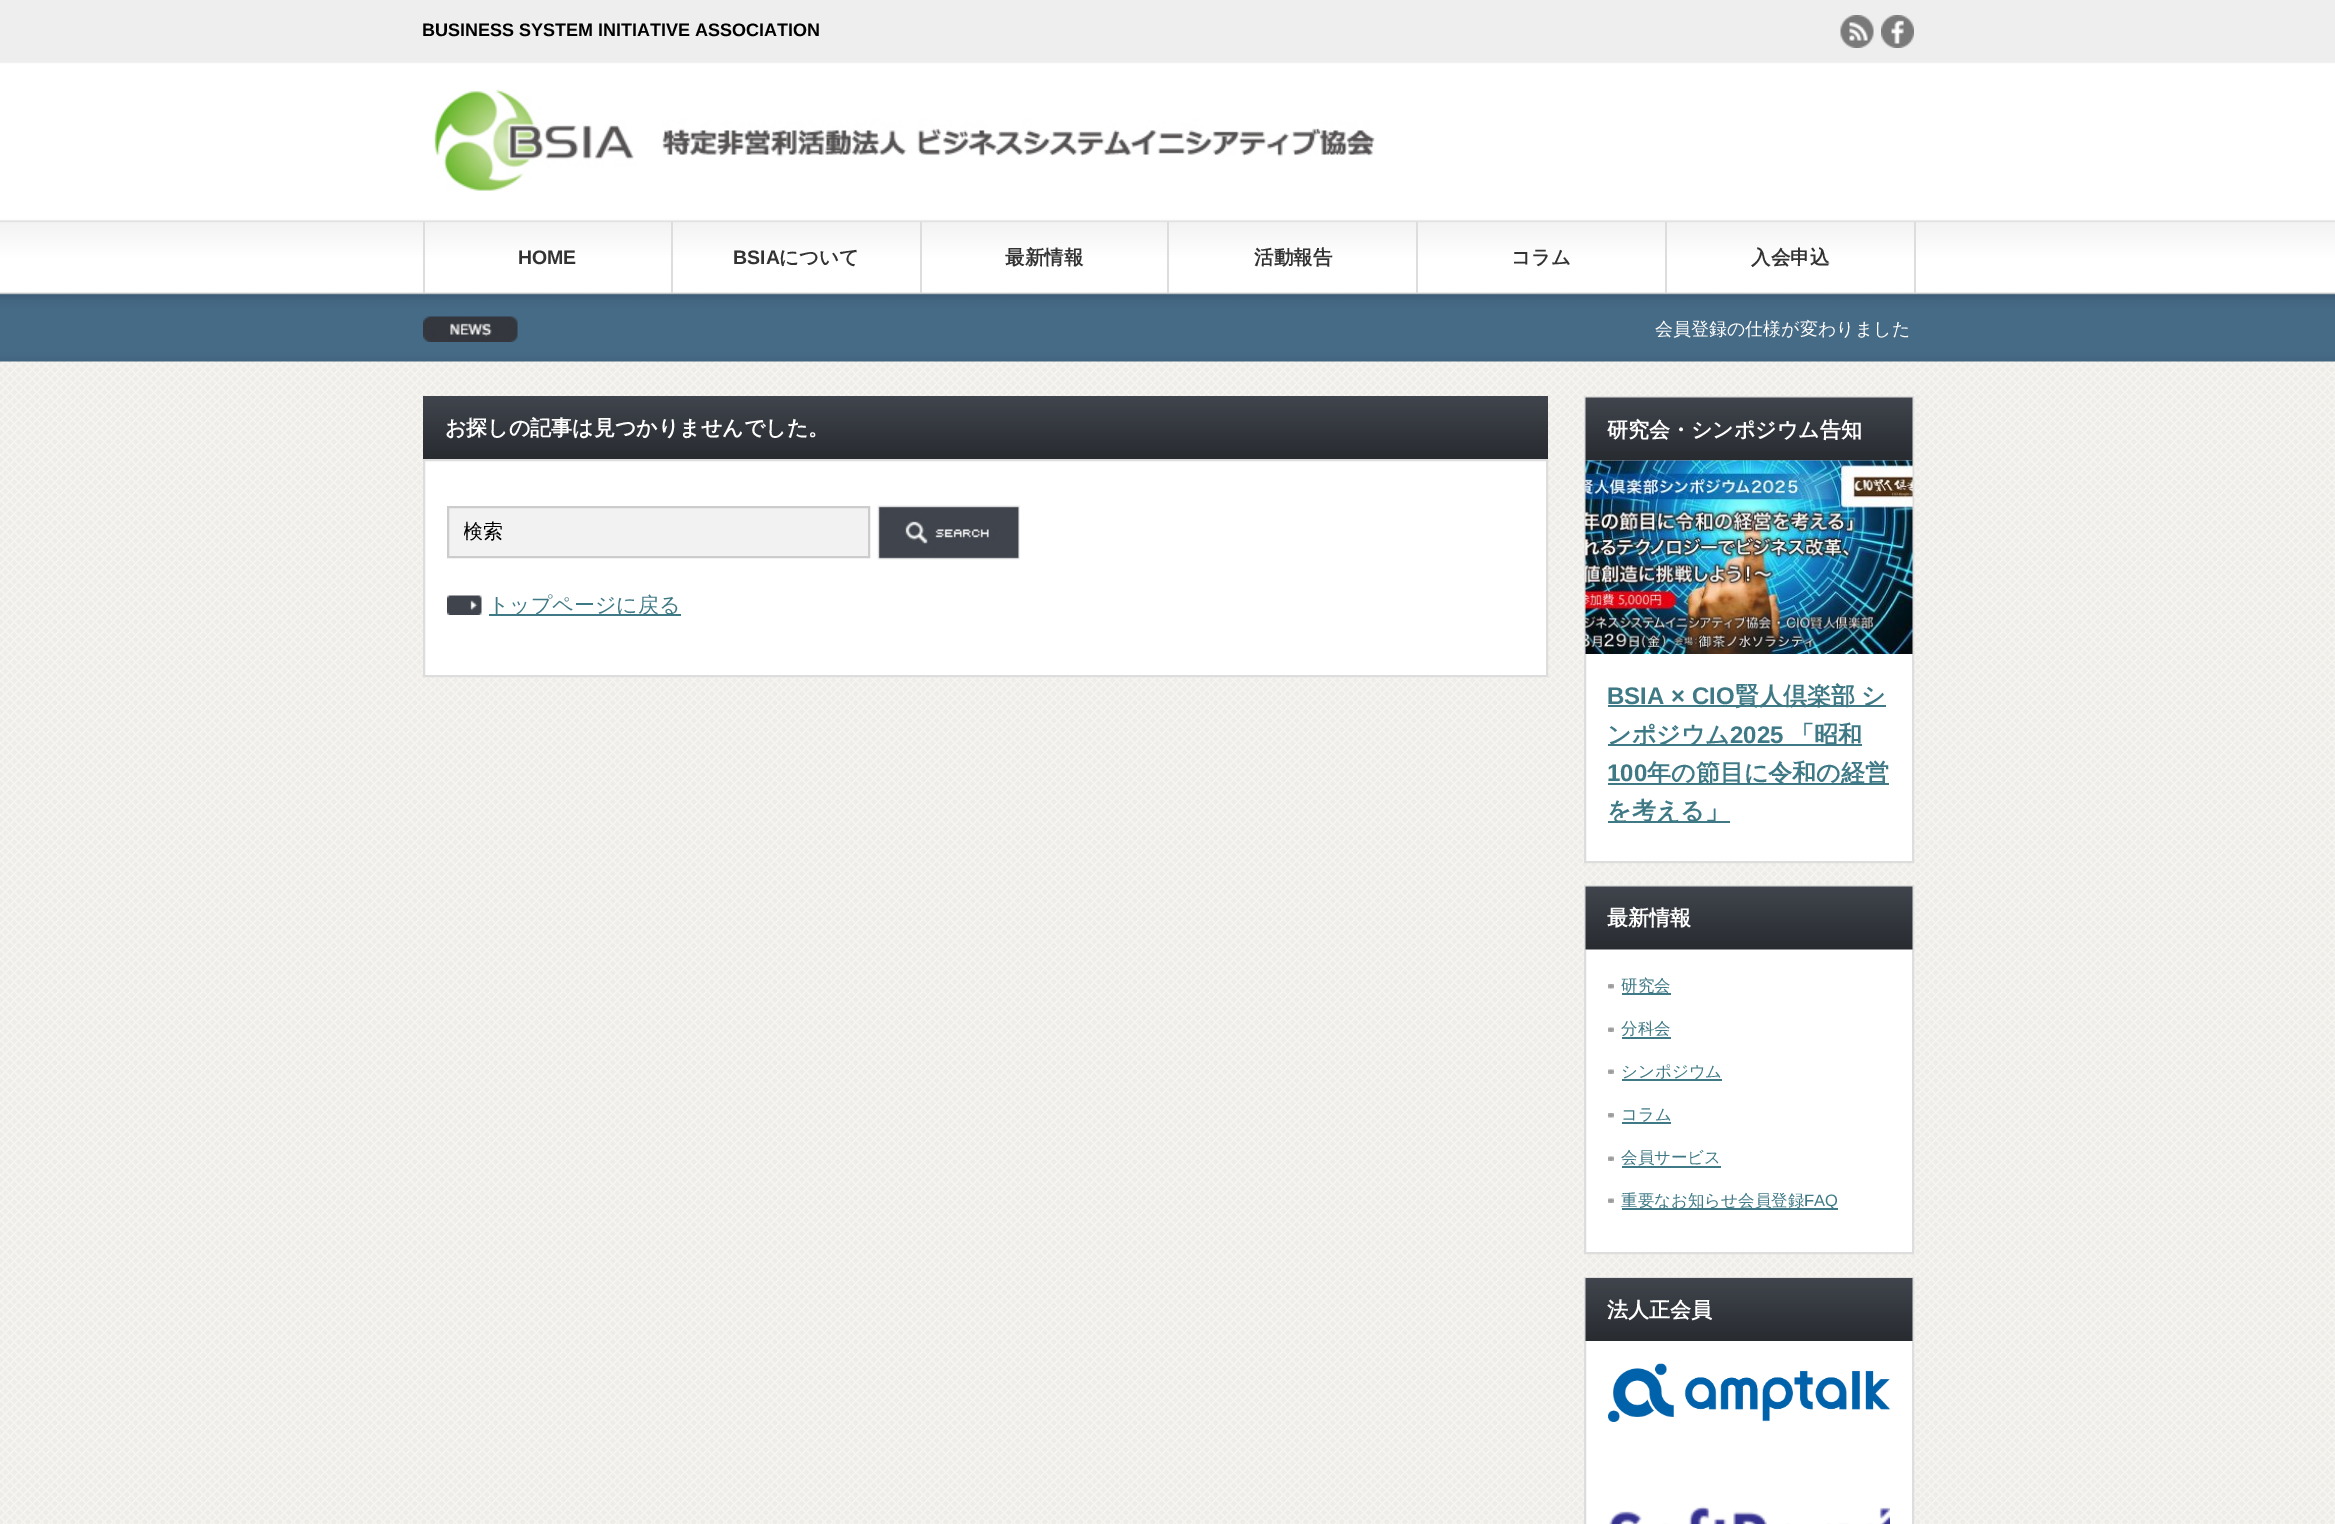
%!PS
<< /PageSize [2335 1524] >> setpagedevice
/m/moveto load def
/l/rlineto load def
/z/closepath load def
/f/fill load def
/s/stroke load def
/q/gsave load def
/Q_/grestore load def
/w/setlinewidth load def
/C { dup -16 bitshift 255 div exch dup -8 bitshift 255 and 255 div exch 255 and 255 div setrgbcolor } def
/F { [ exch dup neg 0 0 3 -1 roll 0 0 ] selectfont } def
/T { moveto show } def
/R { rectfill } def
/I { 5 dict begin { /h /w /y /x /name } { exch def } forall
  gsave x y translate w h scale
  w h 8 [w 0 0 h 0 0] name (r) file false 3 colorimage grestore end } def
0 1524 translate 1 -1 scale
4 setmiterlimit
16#FFFFFF C
0 0 2335 1524 R
(1.rgb) 0 361 2335 1163 I
(2.rgb) 0 0 2335 362 I
/LiberationSans-Bold 18 F
16#000000 C
(BUSINESS SYSTEM INITIATIVE ASSOCIATION) 422 36 T
(3.rgb) 1840 15 34 33 I
(4.rgb) 1881 15 33 33 I
(5.rgb) 434 89 941 102 I
16#DDDDDD C
1914 222 2 71 R
423 222 2 71 R
/LiberationSans-Bold 19.5 F
16#333333 C
(HOME) 518 264 T
16#DDDDDD C
671 222 2 71 R
16#333333 C
(BSIA) 733 264 T
/WenQuanYiZenHei-Bold 19.5 F
(について) 779 264 T
16#DDDDDD C
920 222 2 71 R
16#333333 C
(最新情報) 1005 264 T
16#DDDDDD C
1167 222 2 71 R
16#333333 C
(活動報告) 1254 264 T
16#DDDDDD C
1416 222 2 71 R
16#333333 C
(コラム) 1511 264 T
16#DDDDDD C
1665 222 2 71 R
16#333333 C
(入会申込) 1751 264 T
(6.rgb) 423 316 95 26 I
/WenQuanYiZenHei-Medium 18 F
16#FFFFFF C
(会員登録の仕様が変わりました) 1655 335 T
(7.rgb) 423 396 1125 63 I
/WenQuanYiZenHei-Bold 21 F
(お探しの記事は見つかりませんでした。) 445 435 T
424 460 m 1123 0 l 0 216 l -1123 0 l z q f Q_
16#DDDDDD C
2 w
s
16#F2F2F2 C
448 507 m 421 0 l 0 50 l -421 0 l z q f Q_
16#CCCCCC C
s
q
464 519 390 27 rectclip
/WenQuanYiZenHei-Medium 20 F
16#000000 C
(検索) 463 538 T
Q_
(8.rgb) 877 505 143 55 I
(9.rgb) 447 595 35 20 I
16#3F7985 C
489 614 192 2 R
/WenQuanYiZenHei-Medium 21 F
(トップページに戻る) 488 612 T
16#FFFFFF C
1586 460 326 401 R
16#DDDDDD C
1585 397 328 465 rectstroke
(10.rgb) 1585 397 328 64 I
/WenQuanYiZenHei-Bold 21 F
16#FFFFFF C
(研究会・シンポジウム告知) 1607 437 T
(11.rgb) 1585 460 328 194 I
/LiberationSans-Bold 24 F
16#3F7985 C
(BSIA × CIO) 1607 704 T
1608 705 278 2 R
/WenQuanYiZenHei-Bold 24 F
(賢人倶楽部) 1735 704 T
(シ) 1861 704 T
1608 744 254 2 R
(ンポジウム) 1607 743 T
/LiberationSans-Bold 24 F
(2025) 1730 743 T
/WenQuanYiZenHei-Bold 24 F
(「昭和) 1790 743 T
/LiberationSans-Bold 24 F
(100) 1607 781 T
1608 783 281 2 R
/WenQuanYiZenHei-Bold 24 F
(年の節目に令和の経営) 1647 781 T
1608 821 122 2 R
(を考える」) 1607 819 T
16#FFFFFF C
1586 949 326 303 R
16#DDDDDD C
1585 886 328 367 rectstroke
(10.rgb) 1585 886 328 64 I
/WenQuanYiZenHei-Bold 21 F
16#FFFFFF C
(最新情報) 1607 925 T
(12.rgb) 1608 984 6 5 I
16#3F7985 C
1622 993 49 2 R
/WenQuanYiZenHei-Medium 16.5 F
(研究会) 1621 991 T
(13.rgb) 1608 1027 6 5 I
(分科会) 1621 1034 T
1622 1037 49 2 R
(13.rgb) 1608 1069 6 5 I
1622 1079 100 2 R
(シンポジウム) 1621 1077 T
(12.rgb) 1608 1113 6 5 I
(コラム) 1621 1120 T
1622 1122 49 2 R
(13.rgb) 1608 1156 6 5 I
(会員サービス) 1621 1163 T
1622 1166 99 2 R
(13.rgb) 1608 1198 6 5 I
1622 1208 216 2 R
(重要なお知らせ会員登録) 1621 1206 T
/LiberationSans-Regular 16.5 F
(FAQ) 1804 1206 T
16#FFFFFF C
1586 1341 326 183 R
16#DDDDDD C
1585 1278 328 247 rectstroke
(14.rgb) 1585 1278 328 63 I
/WenQuanYiZenHei-Bold 21 F
16#FFFFFF C
(法人正会員) 1607 1317 T
(15.rgb) 1608 1363 282 59 I
(16.rgb) 1609 1506 281 18 I
showpage
